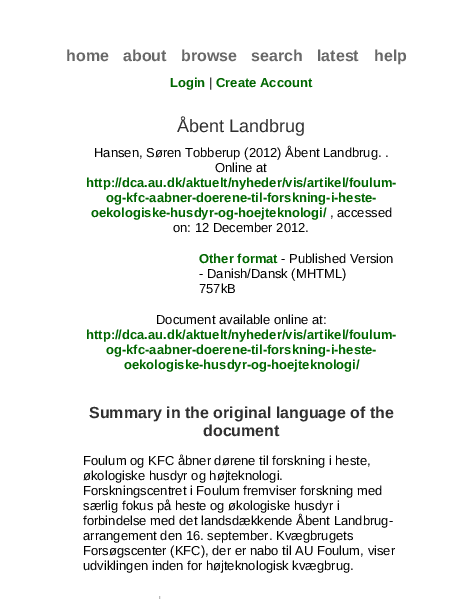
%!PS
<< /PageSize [472 599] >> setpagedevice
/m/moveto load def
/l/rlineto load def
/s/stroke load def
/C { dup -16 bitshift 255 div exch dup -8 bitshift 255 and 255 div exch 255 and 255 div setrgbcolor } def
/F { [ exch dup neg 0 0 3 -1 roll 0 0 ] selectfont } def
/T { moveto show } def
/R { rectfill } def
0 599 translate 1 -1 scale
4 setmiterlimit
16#FFFFFF C
0 0 472 599 R
/LiberationSans-Bold 16 F
16#686868 C
(home) 66 61 T
(about) 123 61 T
(browse) 181 61 T
(search) 251 61 T
(latest) 317 61 T
(help) 374 61 T
/LiberationSans-Bold 13 F
16#006600 C
(Login) 170 87 T
/LiberationSans-Regular 13 F
16#000000 C
(|) 209 87 T
/LiberationSans-Bold 13 F
16#006600 C
(Create Account) 216 87 T
/LiberationSans-Regular 18 F
16#303030 C
(Åbent Landbrug) 177 132 T
/LiberationSans-Regular 13 F
16#000000 C
(Hansen, Søren Tobberup \(2012\) Åbent Landbrug. .) 94 157 T
(Online at) 215 172 T
/LiberationSans-Bold 13 F
16#006600 C
(http://dca.au.dk/aktuelt/nyheder/vis/artikel/foulum-) 86 187 T
(og-kfc-aabner-doerene-til-forskning-i-heste-) 106 202 T
(oekologiske-husdyr-og-hoejteknologi/) 91 217 T
/LiberationSans-Regular 13 F
16#000000 C
(, accessed) 330 217 T
(on: 12 December 2012.) 173 232 T
/LiberationSans-Bold 13 F
16#006600 C
(Other format) 199 263 T
/LiberationSans-Regular 13 F
16#000000 C
(- Published Version) 281 263 T
(- Danish/Dansk \(MHTML\)) 199 278 T
(757kB) 199 293 T
(Document available online at:) 156 324 T
/LiberationSans-Bold 13 F
16#006600 C
(http://dca.au.dk/aktuelt/nyheder/vis/artikel/foulum-) 86 339 T
(og-kfc-aabner-doerene-til-forskning-i-heste-) 106 354 T
(oekologiske-husdyr-og-hoejteknologi/) 124 369 T
/LiberationSans-Bold 16 F
16#303030 C
(Summary in the original language of the) 89 418 T
(document) 203 436 T
/LiberationSans-Regular 13 F
16#000000 C
(Foulum og KFC åbner dørene til forskning i heste,) 83 465 T
(økologiske husdyr og højteknologi.) 83 480 T
(Forskningscentret i Foulum fremviser forskning med) 83 495 T
(særlig fokus på heste og økologiske husdyr i) 83 510 T
(forbindelse med det landsdækkende Åbent Landbrug-) 83 525 T
(arrangement den 16. september. Kvægbrugets) 83 540 T
(Forsøgscenter \(KFC\), der er nabo til AU Foulum, viser) 83 555 T
(udviklingen inden for højteknologisk kvægbrug.) 83 570 T
16#BBBBBB C
[3 1.86] 0 setdash
159.5 596 m 0 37 l s
showpage
